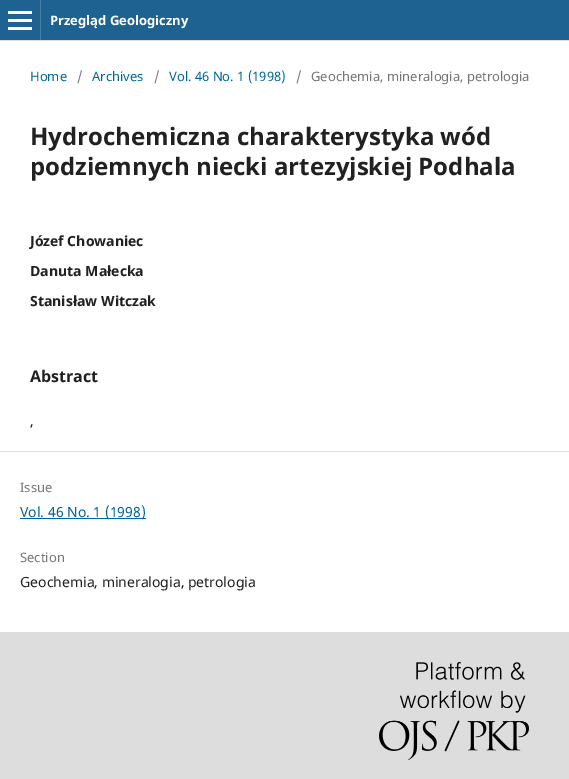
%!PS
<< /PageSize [569 779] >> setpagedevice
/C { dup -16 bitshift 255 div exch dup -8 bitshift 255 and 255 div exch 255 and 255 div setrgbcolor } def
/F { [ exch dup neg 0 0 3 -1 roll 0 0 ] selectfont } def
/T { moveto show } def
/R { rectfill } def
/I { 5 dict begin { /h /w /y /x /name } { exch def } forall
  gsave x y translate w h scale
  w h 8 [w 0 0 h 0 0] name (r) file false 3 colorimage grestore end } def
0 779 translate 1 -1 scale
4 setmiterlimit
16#FFFFFF C
0 0 569 779 R
16#1E6292 C
0 0 569 40 R
16#DDDDDD C
0 40 569 1 R
16#4B81A8 C
40 0 1 40 R
16#FFFFFF C
8 27 24 3 R
8 11 24 3 R
8 19 24 3 R
/NotoSans-Bold 13 F
(Przegląd Geologiczny) 50 25 T
/NotoSans-Regular 13 F
16#006798 C
(Home) 30 81 T
16#757575 C
(/) 77 81 T
16#006798 C
(Archives) 92 81 T
16#757575 C
(/) 154 81 T
16#006798 C
(Vol. 46 No. 1 \(1998\)) 169 81 T
16#757575 C
(/) 296 81 T
(Geochemia, mineralogia, petrologia) 311 81 T
/NotoSans-Bold 24 F
16#212121 C
(Hydrochemiczna charakterystyka wód) 30 145 T
(podziemnych niecki artezyjskiej Podhala) 30 175 T
/NotoSans-Bold 14 F
(Józef Chowaniec) 30 246 T
(Danuta Małecka) 30 276 T
(Stanisław Witczak) 30 306 T
/NotoSans-Bold 16 F
(Abstract) 30 382 T
/NotoSans-Regular 14 F
(,) 30 426 T
16#DDDDDD C
0 451 569 1 R
/NotoSans-Regular 13 F
16#757575 C
(Issue) 20 492 T
16#006798 C
20 518 126 1 R
/NotoSans-Regular 14 F
(Vol. 46 No. 1 \(1998\)) 20 517 T
/NotoSans-Regular 13 F
16#757575 C
(Section) 20 562 T
/NotoSans-Regular 14 F
16#212121 C
(Geochemia, mineralogia, petrologia) 20 587 T
16#DDDDDD C
0 632 569 147 R
(1.rgb) 379 662 150 98 I
showpage
